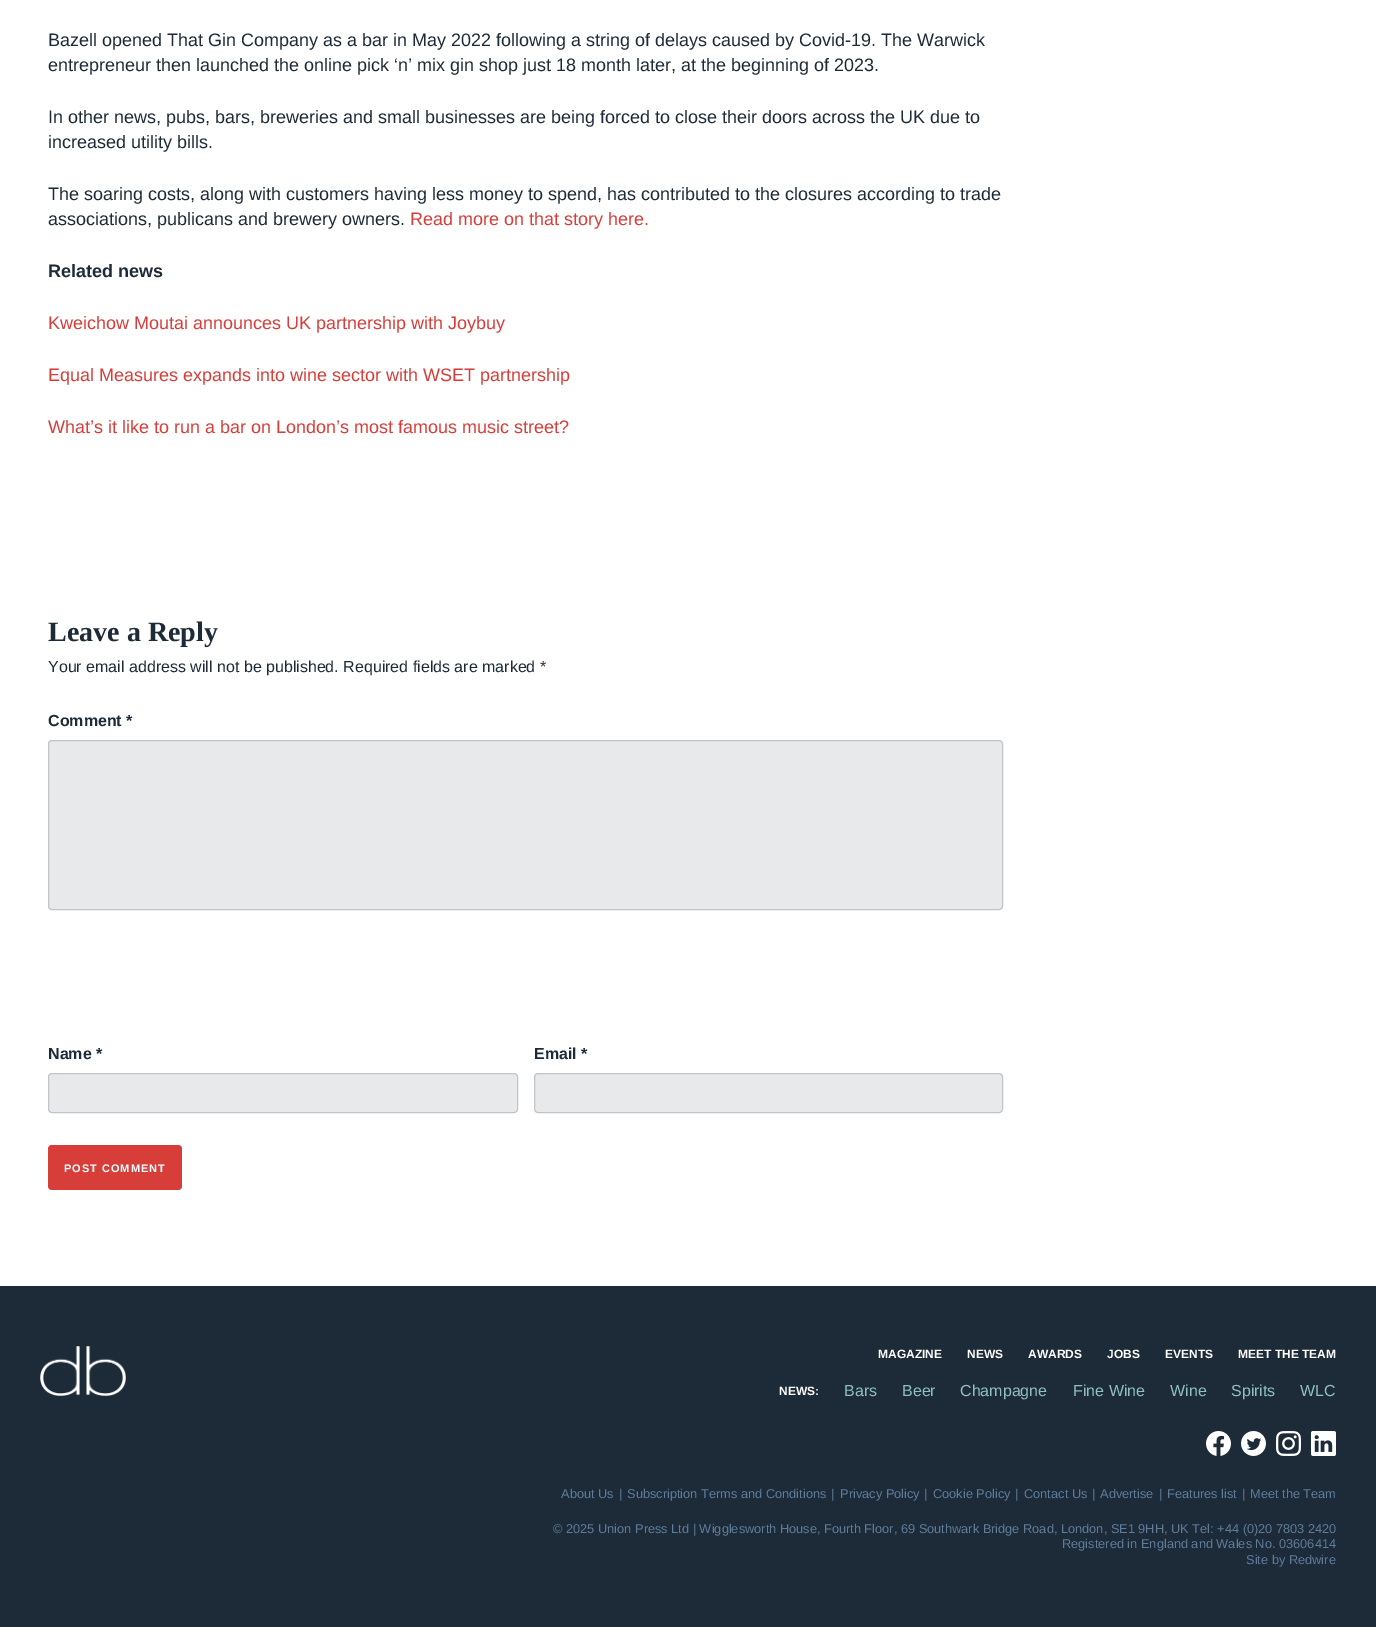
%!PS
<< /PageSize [1376 1627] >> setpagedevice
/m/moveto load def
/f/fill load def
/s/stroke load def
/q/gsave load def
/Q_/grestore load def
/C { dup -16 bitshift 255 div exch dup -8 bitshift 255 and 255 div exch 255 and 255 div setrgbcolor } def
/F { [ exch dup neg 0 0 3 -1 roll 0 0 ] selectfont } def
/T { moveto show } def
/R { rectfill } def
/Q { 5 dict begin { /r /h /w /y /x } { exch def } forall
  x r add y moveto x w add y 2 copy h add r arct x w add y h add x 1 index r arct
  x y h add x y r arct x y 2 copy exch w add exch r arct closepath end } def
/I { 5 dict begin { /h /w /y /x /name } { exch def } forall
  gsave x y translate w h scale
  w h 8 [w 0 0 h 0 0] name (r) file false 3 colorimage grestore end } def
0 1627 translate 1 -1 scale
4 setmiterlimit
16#FFFFFF C
0 0 1376 1627 R
/LiberationSans-Regular 18 F
16#1D2B38 C
(Bazell opened That Gin Company as a bar in May 2022 following a string of delays caused by Covid-19. The Warwick) 48 46 T
(entrepreneur then launched the online pick ‘n’ mix gin shop just 18 month later, at the beginning of 2023.) 48 71 T
(In other news, pubs, bars, breweries and small businesses are being forced to close their doors across the UK due to) 48 123 T
(increased utility bills.) 48 148 T
(The soaring costs, along with customers having less money to spend, has contributed to the closures according to trade) 48 200 T
(associations, publicans and brewery owners.) 48 225 T
16#D73D39 C
(Read more on that story here.) 410 225 T
/LiberationSans-Bold 18 F
16#1D2B38 C
(Related news) 48 277 T
/LiberationSans-Regular 18 F
16#D73D39 C
(Kweichow Moutai announces UK partnership with Joybuy) 48 329 T
(Equal Measures expands into wine sector with WSET partnership) 48 381 T
(What’s it like to run a bar on London’s most famous music street?) 48 433 T
/LiberationSerif-Bold 28 F
16#1D2B38 C
(Leave a Reply) 48 641 T
/LiberationSans-Regular 16 F
(Your email address will not be published. Required fields are marked *) 48 672 T
/LiberationSans-Bold 16 F
(Comment *) 48 726 T
16#E8E9EB C
48.5 740.5 954 169 3.5 Q q f Q_
16#C2C4C9 C
s
16#1D2B38 C
(Name *) 48 1059 T
16#E8E9EB C
48.5 1073.5 469 39 3.5 Q q f Q_
16#C2C4C9 C
s
16#1D2B38 C
(Email *) 534 1059 T
16#E8E9EB C
534.5 1073.5 468 39 3.5 Q q f Q_
16#C2C4C9 C
s
16#D73D39 C
48 1145 134 45 4 Q f
/LiberationSans-Bold 11 F
16#FFFFFF C
64 1172 m 1 0 (POST COMMENT) ashow
16#1D2B38 C
0 1286 1376 341 R
(1.rgb) 40 1346 86 50 I
/LiberationSans-Bold 12 F
16#FFFFFF C
(MAGAZINE) 878 1358 T
(NEWS) 967 1358 T
(AWARDS) 1028 1358 T
(JOBS) 1107 1358 T
(EVENTS) 1165 1358 T
(MEET THE TEAM) 1238 1358 T
(NEWS:) 779 1395 T
/LiberationSans-Regular 16 F
16#8EC0BE C
(Bars) 844 1396 T
(Beer) 902 1396 T
(Champagne) 960 1396 T
(Fine Wine) 1073 1396 T
(Wine) 1170 1396 T
(Spirits) 1231 1396 T
(WLC) 1300 1396 T
(2.rgb) 1206 1431 25 25 I
(3.rgb) 1241 1431 25 25 I
(4.rgb) 1276 1431 25 25 I
(5.rgb) 1311 1431 25 25 I
/LiberationSans-Regular 12.8 F
16#5E7D9B C
(About Us) 561 1498 T
(|) 619 1498 T
(Subscription Terms and Conditions) 627 1498 T
(|) 831 1498 T
(Privacy Policy) 840 1498 T
(|) 924 1498 T
(Cookie Policy) 933 1498 T
(|) 1015 1498 T
(Contact Us) 1024 1498 T
(|) 1092 1498 T
(Advertise) 1100 1498 T
(|) 1159 1498 T
(Features list) 1167 1498 T
(|) 1242 1498 T
(Meet the Team) 1250 1498 T
(© 2025 Union Press Ltd | Wigglesworth House, Fourth Floor, 69 Southwark Bridge Road, London, SE1 9HH, UK Tel: +44 \(0\)20 7803 2420) 553 1533 T
(Registered in England and Wales No. 03606414) 1062 1548 T
(Site by Redwire) 1246 1564 T
showpage
